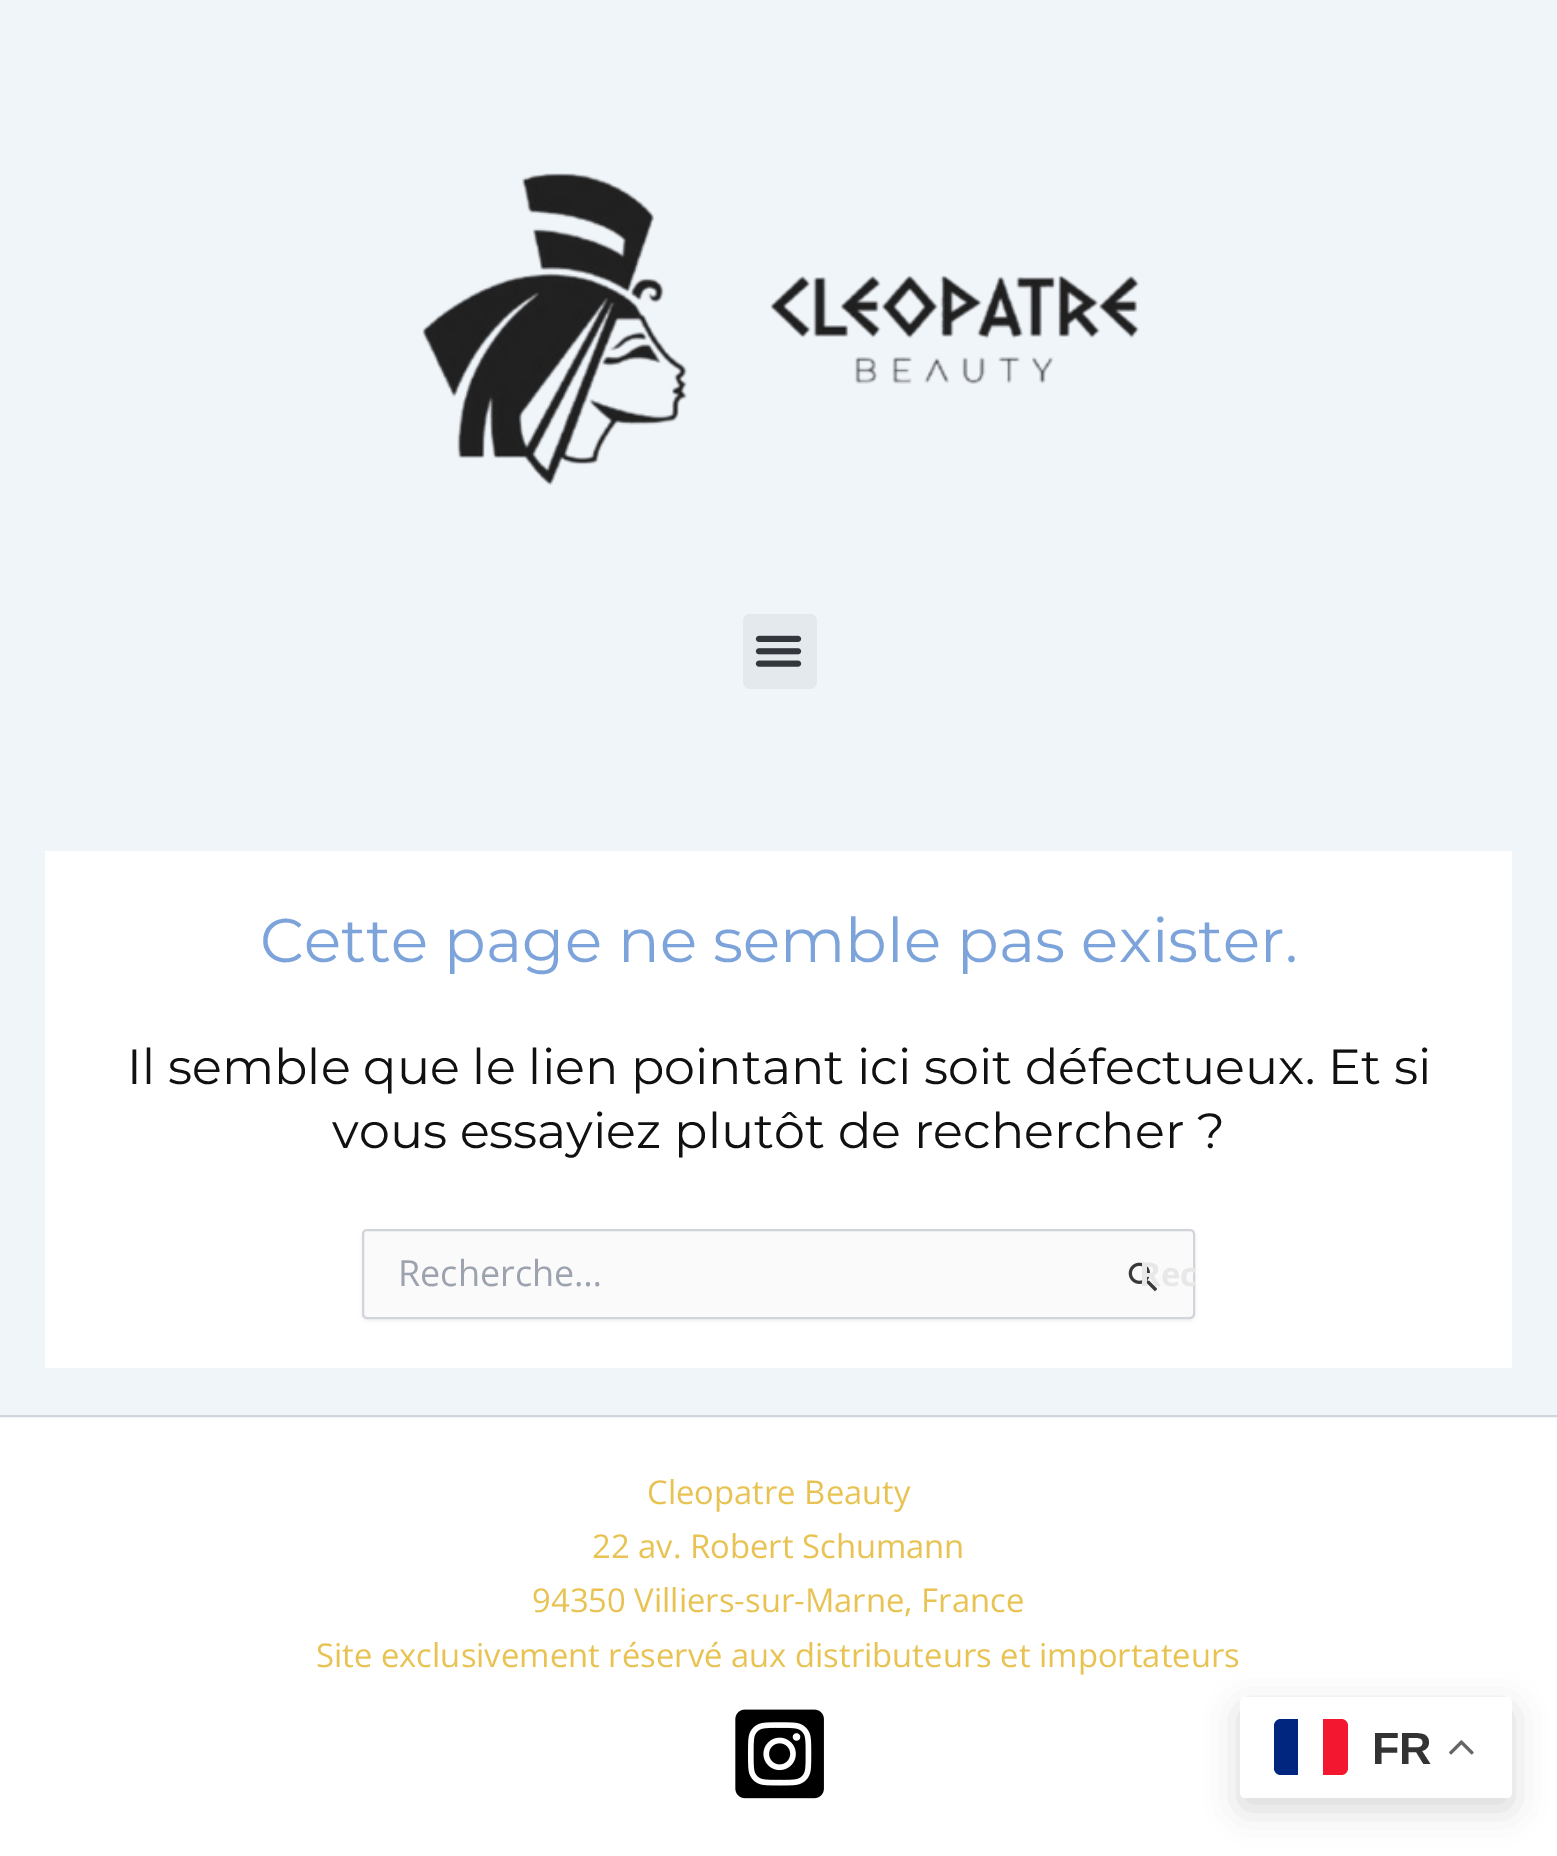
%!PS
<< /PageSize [1557 1856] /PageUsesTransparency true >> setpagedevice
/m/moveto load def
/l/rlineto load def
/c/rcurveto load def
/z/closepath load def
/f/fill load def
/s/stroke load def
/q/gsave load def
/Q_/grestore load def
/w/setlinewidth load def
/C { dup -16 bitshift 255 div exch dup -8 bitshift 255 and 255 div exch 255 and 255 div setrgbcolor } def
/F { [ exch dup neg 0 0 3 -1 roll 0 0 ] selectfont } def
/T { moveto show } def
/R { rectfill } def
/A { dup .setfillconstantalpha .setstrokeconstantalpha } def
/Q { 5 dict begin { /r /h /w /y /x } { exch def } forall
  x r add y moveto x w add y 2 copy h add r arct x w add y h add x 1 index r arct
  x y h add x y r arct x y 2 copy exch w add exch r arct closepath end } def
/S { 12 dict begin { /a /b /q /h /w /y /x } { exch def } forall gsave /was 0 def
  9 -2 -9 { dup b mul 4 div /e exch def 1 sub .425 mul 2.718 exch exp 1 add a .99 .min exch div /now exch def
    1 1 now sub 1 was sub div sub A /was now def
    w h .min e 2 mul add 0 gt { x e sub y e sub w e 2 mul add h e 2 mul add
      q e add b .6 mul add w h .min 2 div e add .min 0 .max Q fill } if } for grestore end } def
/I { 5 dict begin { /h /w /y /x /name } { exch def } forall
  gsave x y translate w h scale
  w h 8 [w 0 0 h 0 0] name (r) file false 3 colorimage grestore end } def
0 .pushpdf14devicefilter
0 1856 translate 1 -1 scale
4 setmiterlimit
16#F0F5FA C
0 0 1557 1856 R
(1.rgb) 422 173 717 313 I
16#E4E9EE C
743 614 74 75 7 Q f
(2.rgb) 755 635 47 32 I
16#FFFFFF C
45 851 1467 517 R
/Montserrat-Regular 61.6 F
16#7DA3DB C
(Cette page ne semble pas exister.) 260 962 T
/Montserrat-Regular 49.25 F
16#111111 C
(Il semble que le lien pointant ici soit défectueux. Et si) 127 1084 T
(vous essayiez plutôt de rechercher ?) 332 1148 T
16#000000 C
362 1231 833 90 5 2 .05 S
16#FAFAFA C
363 1230 831 88 4 Q q f Q_
16#D1D5DB C
2 w
s
/OpenSans-Regular 36 F
16#9CA3AF C
(Recherche…) 398 1286 T
(3.rgb) 1128 1262 29 30 I
/OpenSans-Bold 32.8 F
16#E8E8E8 C
(Rec) 1139 1286 T
16#FFFFFF C
0 1418 1557 438 R
16#D1D5DB C
0 1415 1557 2 R
/OpenSans-Regular 32.8 F
16#E8C353 C
(Cleopatre Beauty) 647 1504 T
(22 av. Robert Schumann) 592 1558 T
(94350 Villiers-sur-Marne, France) 532 1612 T
(Site exclusivement réservé aux distributeurs et importateurs) 316 1667 T
(4.rgb) 735 1709 89 90 I
16#000000 C
1240 1708 272 101 5 17 .15 S
16#FFFFFF C
1240 1697 272 101 5 Q f
16#00267F C
1281 1719 m 17 0 l 0 56 l -17 0 l -4 0 -7 -3 -7 -7 c 0 -42 l 0 -4 3 -7 7 -7 c z f
16#F31830 C
1323 1719 m 18 0 l 4 0 7 3 7 7 c 0 42 l 0 4 -3 7 -7 7 c -18 0 l z f
/LiberationSans-Bold 45 F
16#333333 C
(FR) 1372 1764 T
(5.rgb) 1449 1740 25 15 I
.poppdf14devicefilter showpage
